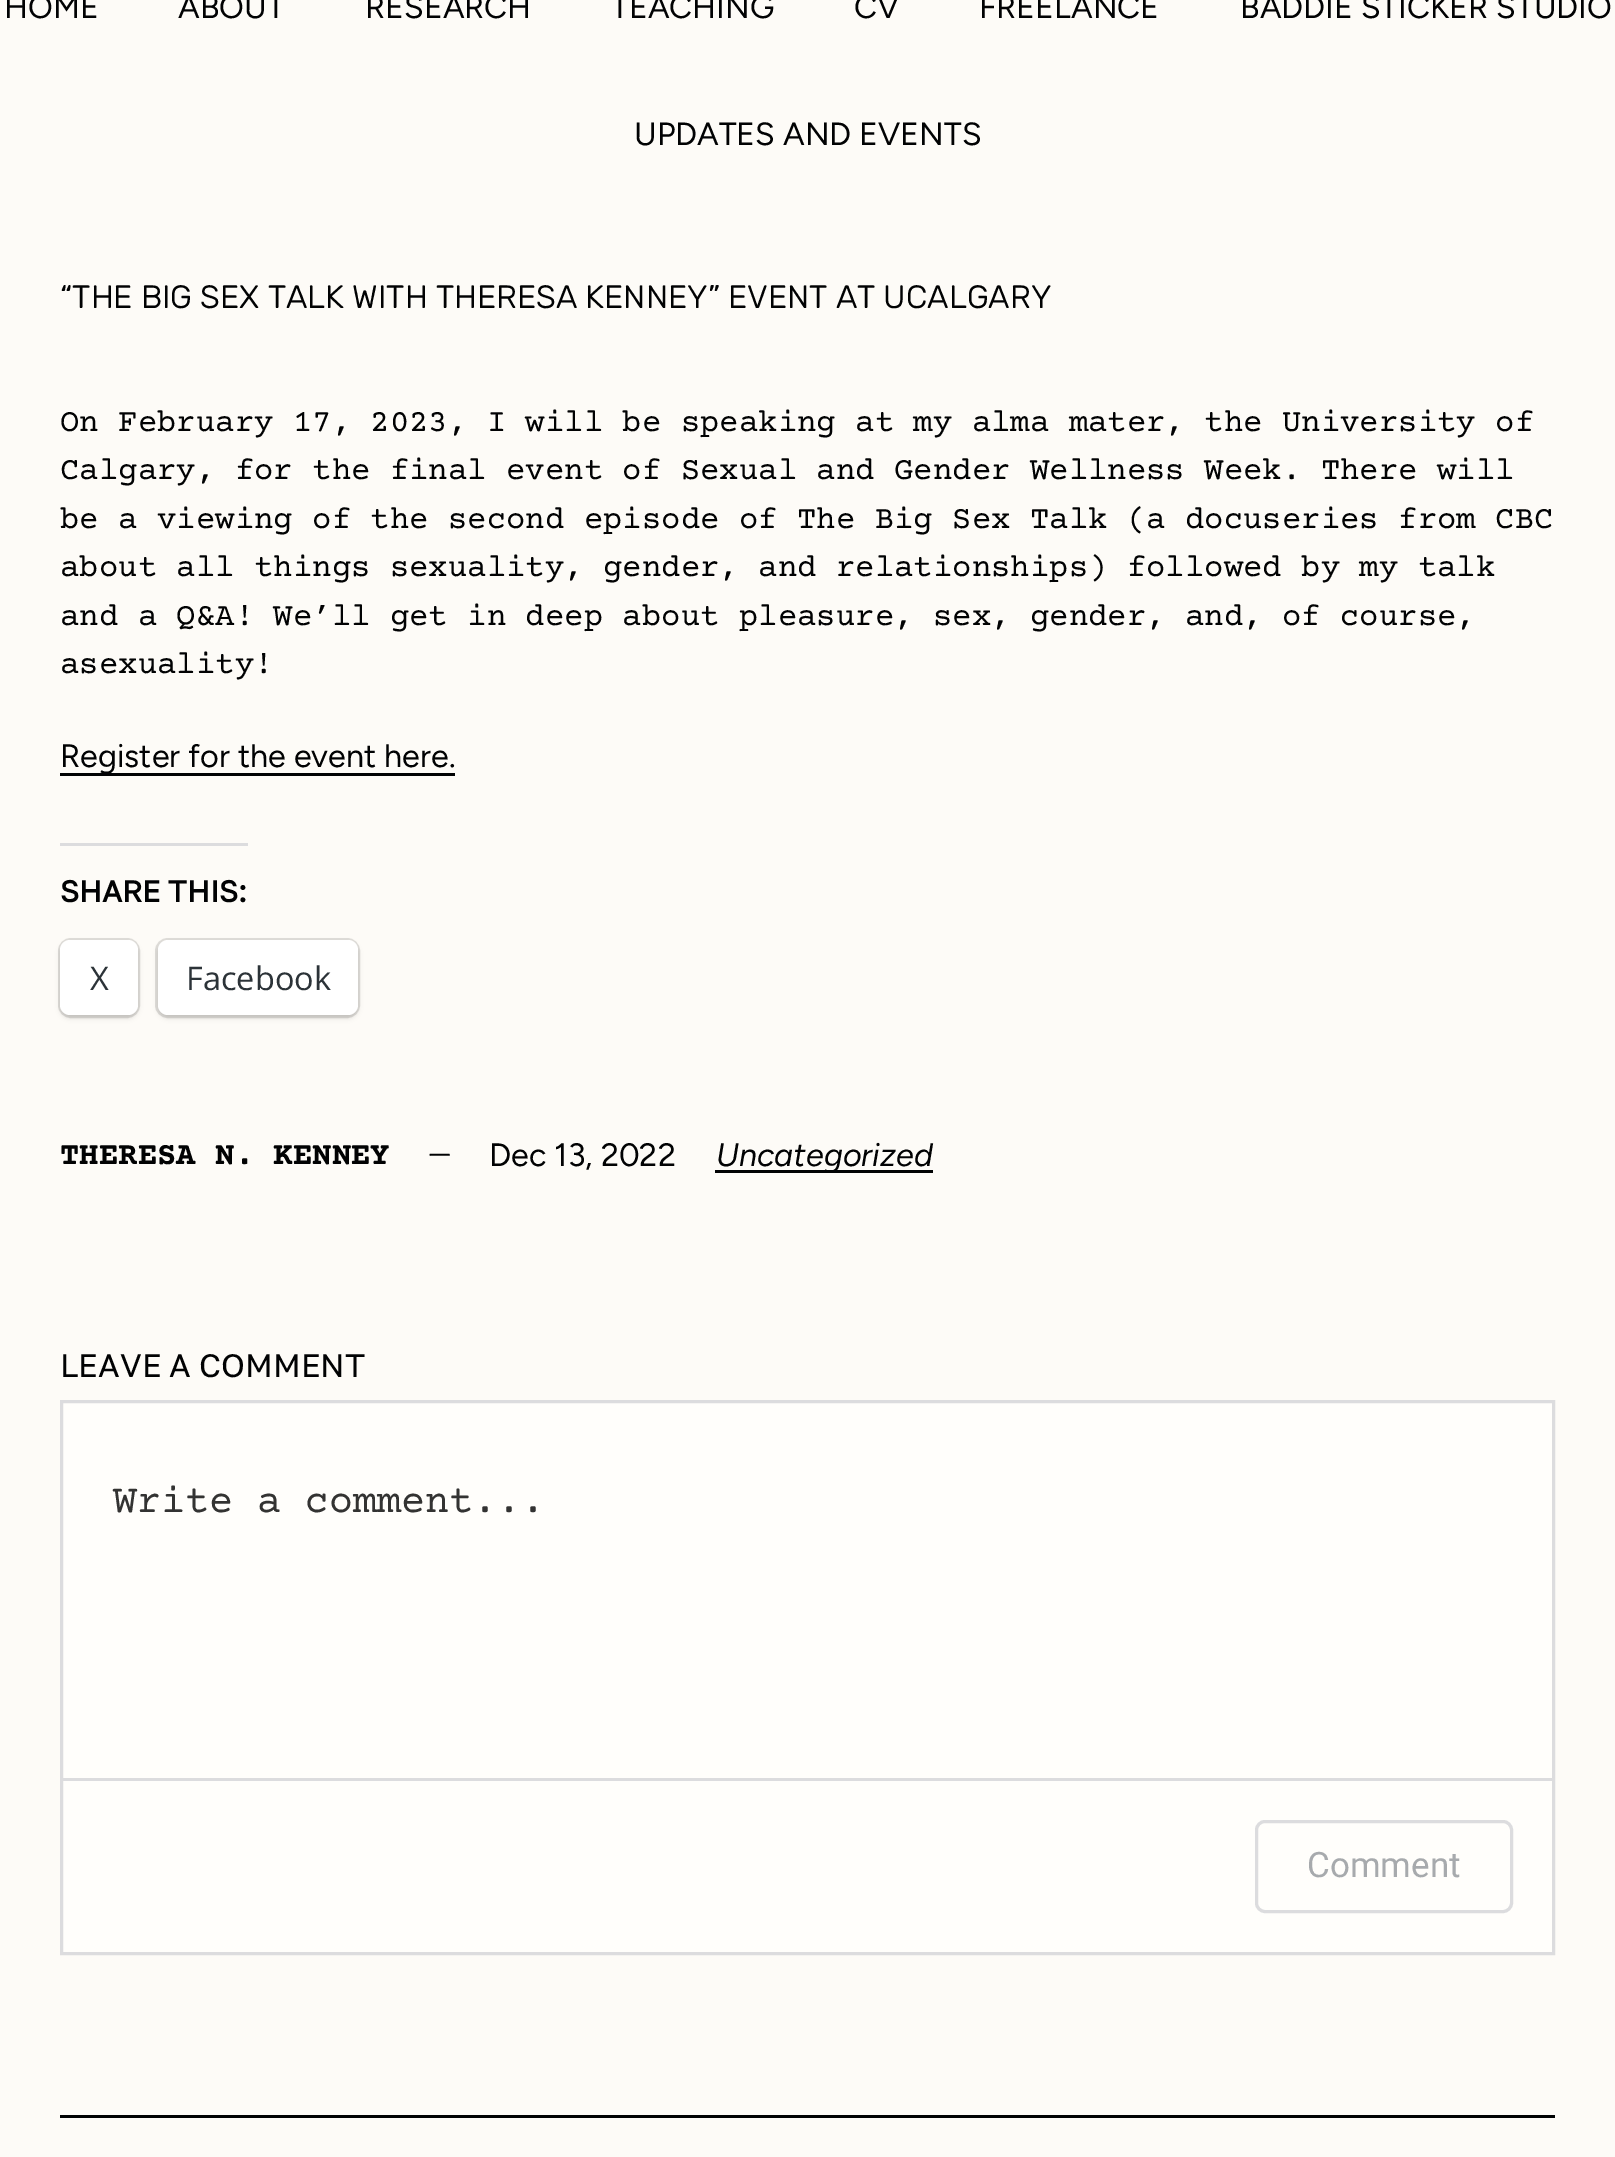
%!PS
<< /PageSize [1615 2157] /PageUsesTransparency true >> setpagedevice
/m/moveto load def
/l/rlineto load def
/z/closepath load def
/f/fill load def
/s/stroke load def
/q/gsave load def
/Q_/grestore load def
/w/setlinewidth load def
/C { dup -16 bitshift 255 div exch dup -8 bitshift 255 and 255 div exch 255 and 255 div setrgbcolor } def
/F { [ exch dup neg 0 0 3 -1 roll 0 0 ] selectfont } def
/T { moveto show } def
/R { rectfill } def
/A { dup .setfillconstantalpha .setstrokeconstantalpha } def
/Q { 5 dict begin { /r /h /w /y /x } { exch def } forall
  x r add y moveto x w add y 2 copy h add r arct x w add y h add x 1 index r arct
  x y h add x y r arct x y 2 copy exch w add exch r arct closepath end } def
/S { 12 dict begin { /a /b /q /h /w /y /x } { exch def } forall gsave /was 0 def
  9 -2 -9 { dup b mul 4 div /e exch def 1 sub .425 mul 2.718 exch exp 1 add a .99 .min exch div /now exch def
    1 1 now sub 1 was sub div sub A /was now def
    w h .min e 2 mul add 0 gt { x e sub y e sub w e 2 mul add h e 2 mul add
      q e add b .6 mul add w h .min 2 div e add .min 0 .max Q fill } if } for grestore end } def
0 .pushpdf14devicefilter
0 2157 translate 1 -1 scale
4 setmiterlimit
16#FDFBF7 C
0 0 1615 2157 R
/Figtree-Regular 32 F
16#010203 C
(HOME) 4 18 T
(ABOUT) 178 18 T
(RESEARCH) 365 18 T
(TEACHING) 611 18 T
(CV) 854 18 T
(FREELANCE) 979 18 T
(BADDIE STICKER STUDIO) 1240 18 T
(UPDATES AND EVENTS) 634 145 T
/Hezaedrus-Light 32.35 F
(“THE BIG SEX TALK WITH THERESA KENNEY” EVENT AT UCALGARY) 60 308 T
/CourierPrime-Regular 32.35 F
(On February 17, 2023, I will be speaking at my alma mater, the University of) 60 431 T
(Calgary, for the final event of Sexual and Gender Wellness Week. There will) 60 479 T
(be a viewing of the second episode of The Big Sex Talk \(a docuseries from CBC) 60 528 T
(about all things sexuality, gender, and relationships\) followed by my talk) 60 576 T
(and a Q&A! We’ll get in deep about pleasure, sex, gender, and, of course,) 60 625 T
(asexuality!) 60 673 T
60 773 395 3 R
/Figtree-Regular 32.35 F
(Register for the event here.) 60 767 T
16#DCDCDE C
60 843 188 3 R
/GolosText-Bold 30 F
16#010203 C
(SHARE THIS:) 60 902 T
16#DFDDD9 C
3 w
59.5 939.5 79 77 11.5 Q s
16#000000 C
60 943 78 75 10 2.5 .12 S
16#FFFFFF C
60 940 78 75 10 Q f
/OpenSans-Regular 32.5 F
16#2C3338 C
(X) 90 990 T
16#DFDDD9 C
156.5 939.5 202 77 11.5 Q s
16#000000 C
158 943 200 75 10 2.5 .12 S
16#FFFFFF C
158 940 200 75 10 Q f
16#2C3338 C
(Facebook) 186 990 T
/CourierPrime-Bold 32.35 F
16#010203 C
(THERESA N. KENNEY) 60 1164 T
/CourierPrime-Regular 32.35 F
(—) 430 1164 T
/Figtree-Regular 32.35 F
(Dec 13, 2022) 489 1166 T
715 1170 218 3 R
/Figtree-Italic 32.35 F
(Uncategorized) 716 1166 T
/GolosText-Regular 32.35 F
(LEAVE A COMMENT) 60 1377 T
16#FFFEFB C
61.5 1401.5 m 1492 0 l 0 552 l -1492 0 l z q f Q_
16#DCDCDE C
s
/CourierPrime-Regular 40 F
16#333332 C
(Write a comment...) 113 1512 T
16#DCDCDE C
63 1778 1490 3 R
1256.5 1821.5 255 90 8.5 Q s
/Roboto-Regular 35 F
16#A7AAAD C
(Comment) 1307 1877 T
16#010203 C
60 2115 1495 3 R
.poppdf14devicefilter showpage
